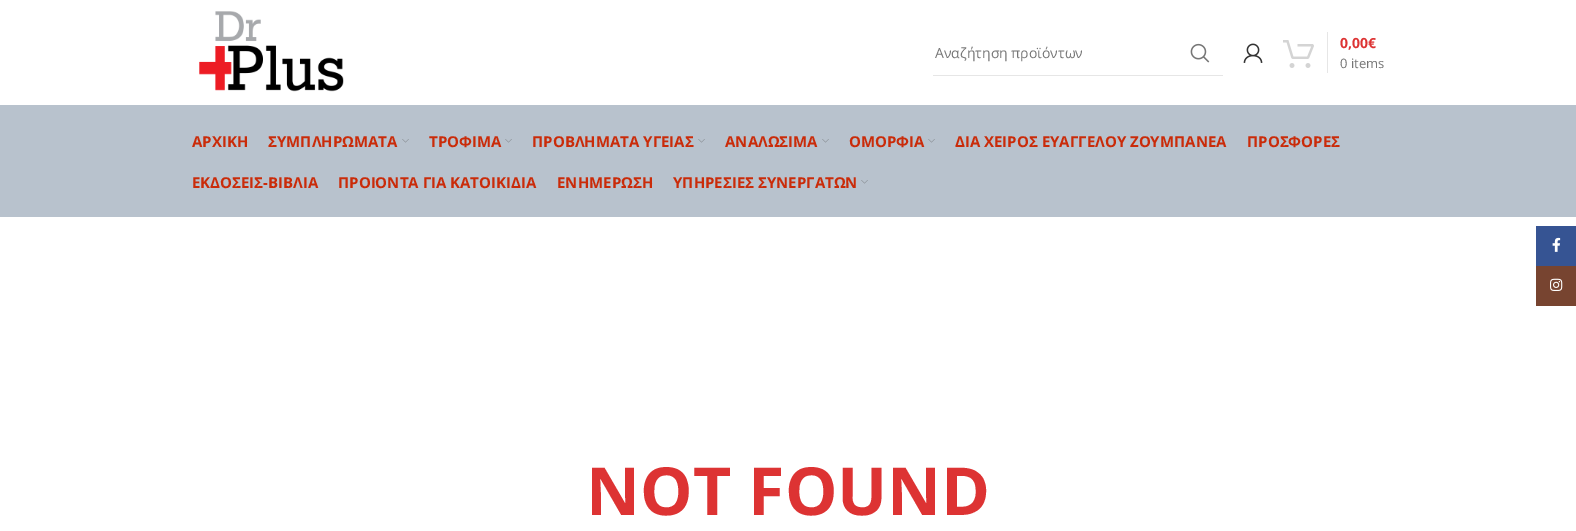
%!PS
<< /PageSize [1576 531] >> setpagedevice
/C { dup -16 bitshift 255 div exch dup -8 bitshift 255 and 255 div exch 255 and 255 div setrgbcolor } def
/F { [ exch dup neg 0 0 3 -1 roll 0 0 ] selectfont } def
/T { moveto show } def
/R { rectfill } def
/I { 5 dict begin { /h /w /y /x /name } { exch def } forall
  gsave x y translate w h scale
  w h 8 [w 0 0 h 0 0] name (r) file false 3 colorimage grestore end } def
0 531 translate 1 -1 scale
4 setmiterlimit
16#FFFFFF C
0 0 1576 531 R
(1.rgb) 199 11 145 81 I
16#E6E6E6 C
933 75 290 1 R
/OpenSans-Regular 14 F
16#767676 C
(Αναζήτηση προϊόντων) 935 58 T
(2.rgb) 1190 43 20 20 I
(3.rgb) 1243 43 20 20 I
(4.rgb) 1283 40 31 28 I
16#E6E6E6 C
1327 32 1 41 R
/OpenSans-Bold 14 F
16#DD3333 C
(0,00€) 1340 48 T
/OpenSans-Regular 13 F
16#767676 C
(0 items) 1340 68 T
16#B8C2CD C
0 105 1576 112 R
/OpenSans-Bold 15 F
16#CA2B09 C
(ΑΡΧΙΚΗ) 192 147 T
(ΣΥΜΠΛΗΡΩΜΑΤΑ) 268 147 T
(5.rgb) 402 139 7 4 I
(ΤΡΟΦΙΜΑ) 429 147 T
(5.rgb) 505 139 7 4 I
(ΠΡΟΒΛΗΜΑΤΑ ΥΓΕΙΑΣ) 532 147 T
(5.rgb) 698 139 7 4 I
(ΑΝΑΛΩΣΙΜΑ) 725 147 T
(5.rgb) 822 139 7 4 I
(ΟΜΟΡΦΙΑ) 849 147 T
(5.rgb) 928 139 7 4 I
(ΔΙΑ ΧΕΙΡΟΣ ΕΥΑΓΓΕΛΟΥ ΖΟΥΜΠΑΝΕΑ) 955 147 T
(ΠΡΟΣΦΟΡΕΣ) 1247 147 T
(ΕΚΔΟΣΕΙΣ-ΒΙΒΛΙΑ) 192 188 T
(ΠΡΟΙΟΝΤΑ ΓΙΑ ΚΑΤΟΙΚΙΔΙΑ) 338 188 T
(ΕΝΗΜΕΡΩΣΗ) 557 188 T
(ΥΠΗΡΕΣΙΕΣ ΣΥΝΕΡΓΑΤΩΝ) 673 188 T
(5.rgb) 861 180 7 4 I
/OpenSans-Bold 66.25 F
16#DD3333 C
(NOT FOUND) 586 515 T
16#365493 C
1536 226 40 40 R
(6.rgb) 1552 237 9 15 I
16#774430 C
1536 266 40 40 R
(7.rgb) 1550 278 13 13 I
showpage
